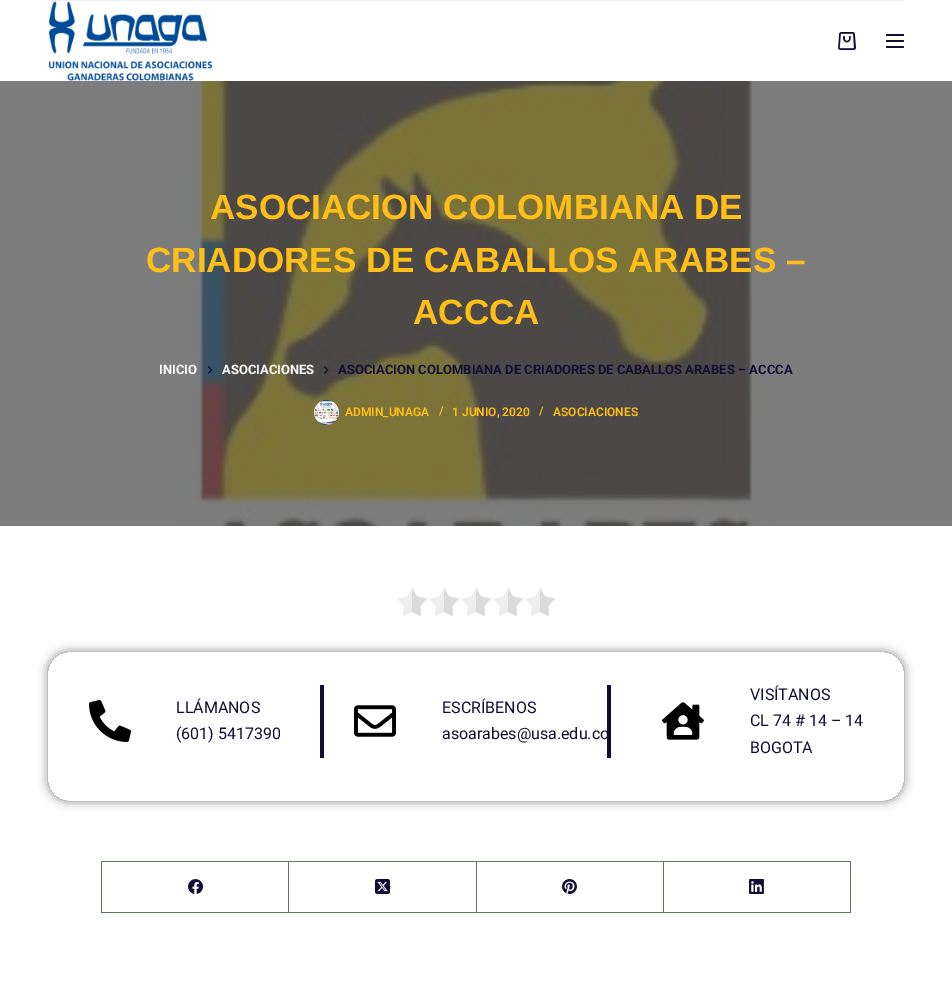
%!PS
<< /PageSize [952 1002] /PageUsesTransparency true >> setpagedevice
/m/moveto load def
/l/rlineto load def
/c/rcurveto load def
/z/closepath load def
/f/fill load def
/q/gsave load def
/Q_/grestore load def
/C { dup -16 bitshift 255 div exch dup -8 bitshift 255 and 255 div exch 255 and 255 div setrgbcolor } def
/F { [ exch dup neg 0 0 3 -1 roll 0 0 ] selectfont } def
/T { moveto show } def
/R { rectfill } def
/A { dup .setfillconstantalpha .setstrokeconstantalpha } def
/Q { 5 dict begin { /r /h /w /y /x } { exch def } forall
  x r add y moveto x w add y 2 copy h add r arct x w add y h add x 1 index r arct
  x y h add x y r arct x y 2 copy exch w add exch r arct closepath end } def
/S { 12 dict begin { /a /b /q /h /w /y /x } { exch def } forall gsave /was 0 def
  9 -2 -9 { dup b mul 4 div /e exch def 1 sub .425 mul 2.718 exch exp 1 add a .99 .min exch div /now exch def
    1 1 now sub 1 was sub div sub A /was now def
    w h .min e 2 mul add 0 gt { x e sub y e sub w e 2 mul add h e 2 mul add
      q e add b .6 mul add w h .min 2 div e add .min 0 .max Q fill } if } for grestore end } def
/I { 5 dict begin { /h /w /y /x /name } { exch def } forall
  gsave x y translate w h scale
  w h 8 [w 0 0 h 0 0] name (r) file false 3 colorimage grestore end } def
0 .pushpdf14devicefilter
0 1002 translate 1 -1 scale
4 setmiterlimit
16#FFFFFF C
0 0 952 1002 R
16#F0F1F3 C
48 0 856 1 R
(1.rgb) 48 1 165 80 I
(2.rgb) 838 32 18 18 I
16#100E34 C
886 34 18 2 1 Q f
886 40 18 2 1 Q f
886 46 18 2 1 Q f
(3.rgb) 0 81 952 445 I
/LiberationSans-Bold 35 F
16#FFBF18 C
(ASOCIACION COLOMBIANA DE) 210 219 T
(CRIADORES DE CABALLOS ARABES –) 146 272 T
(ACCCA) 413 324 T
/Roboto-Bold 13 F
16#FFFFFF C
(INICIO) 159 374 T
(4.rgb) 208 366 5 8 I
(ASOCIACIONES) 222 374 T
(5.rgb) 324 366 5 8 I
16#100E34 C
(ASOCIACION COLOMBIANA DE CRIADORES DE CABALLOS ARABES – ACCCA) 338 374 T
(6.rgb) 314 400 25 25 I
/Roboto-SemiBold 12 F
16#FFBF18 C
(ADMIN_UNAGA) 345 416 T
(/) 439 415 T
(1 JUNIO, 2020) 452 416 T
(/) 539 415 T
(ASOCIACIONES) 553 416 T
(7.rgb) 397 588 158 29 I
q
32 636 m 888 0 l 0 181 l -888 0 l z 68 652 m 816 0 l 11 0 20 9 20 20 c 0 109 l 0 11 -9 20 -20 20 c -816 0 l -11 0 -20 -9 -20 -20 c 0 -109 l 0 -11 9 -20 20 -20 c z eoclip newpath
16#000000 C
48 652 856 149 20 5 .5 S
Q_
16#100E34 C
320 685 4 73 R
(8.rgb) 89 700 42 42 I
/Roboto-Regular 16 F
(LLÁMANOS) 176 713 T
(\(601\) 5417390) 176 739 T
607 685 4 73 R
(9.rgb) 354 705 42 32 I
(ESCRÍBENOS) 442 713 T
(asoarabes@usa.edu.co) 442 739 T
(10.rgb) 662 702 42 38 I
(VISÍTANOS) 750 700 T
(CL 74 # 14 – 14) 750 726 T
(BOGOTA) 750 753 T
16#5E785E C
101 861 750 1 R
101 861 1 52 R
288 862 1 51 R
102 912 187 1 R
(11.rgb) 188 879 15 15 I
476 862 1 51 R
289 912 188 1 R
(12.rgb) 375 879 15 15 I
663 862 1 51 R
477 912 187 1 R
(13.rgb) 562 879 15 15 I
850 862 1 51 R
664 912 187 1 R
(14.rgb) 749 879 15 15 I
.poppdf14devicefilter showpage
